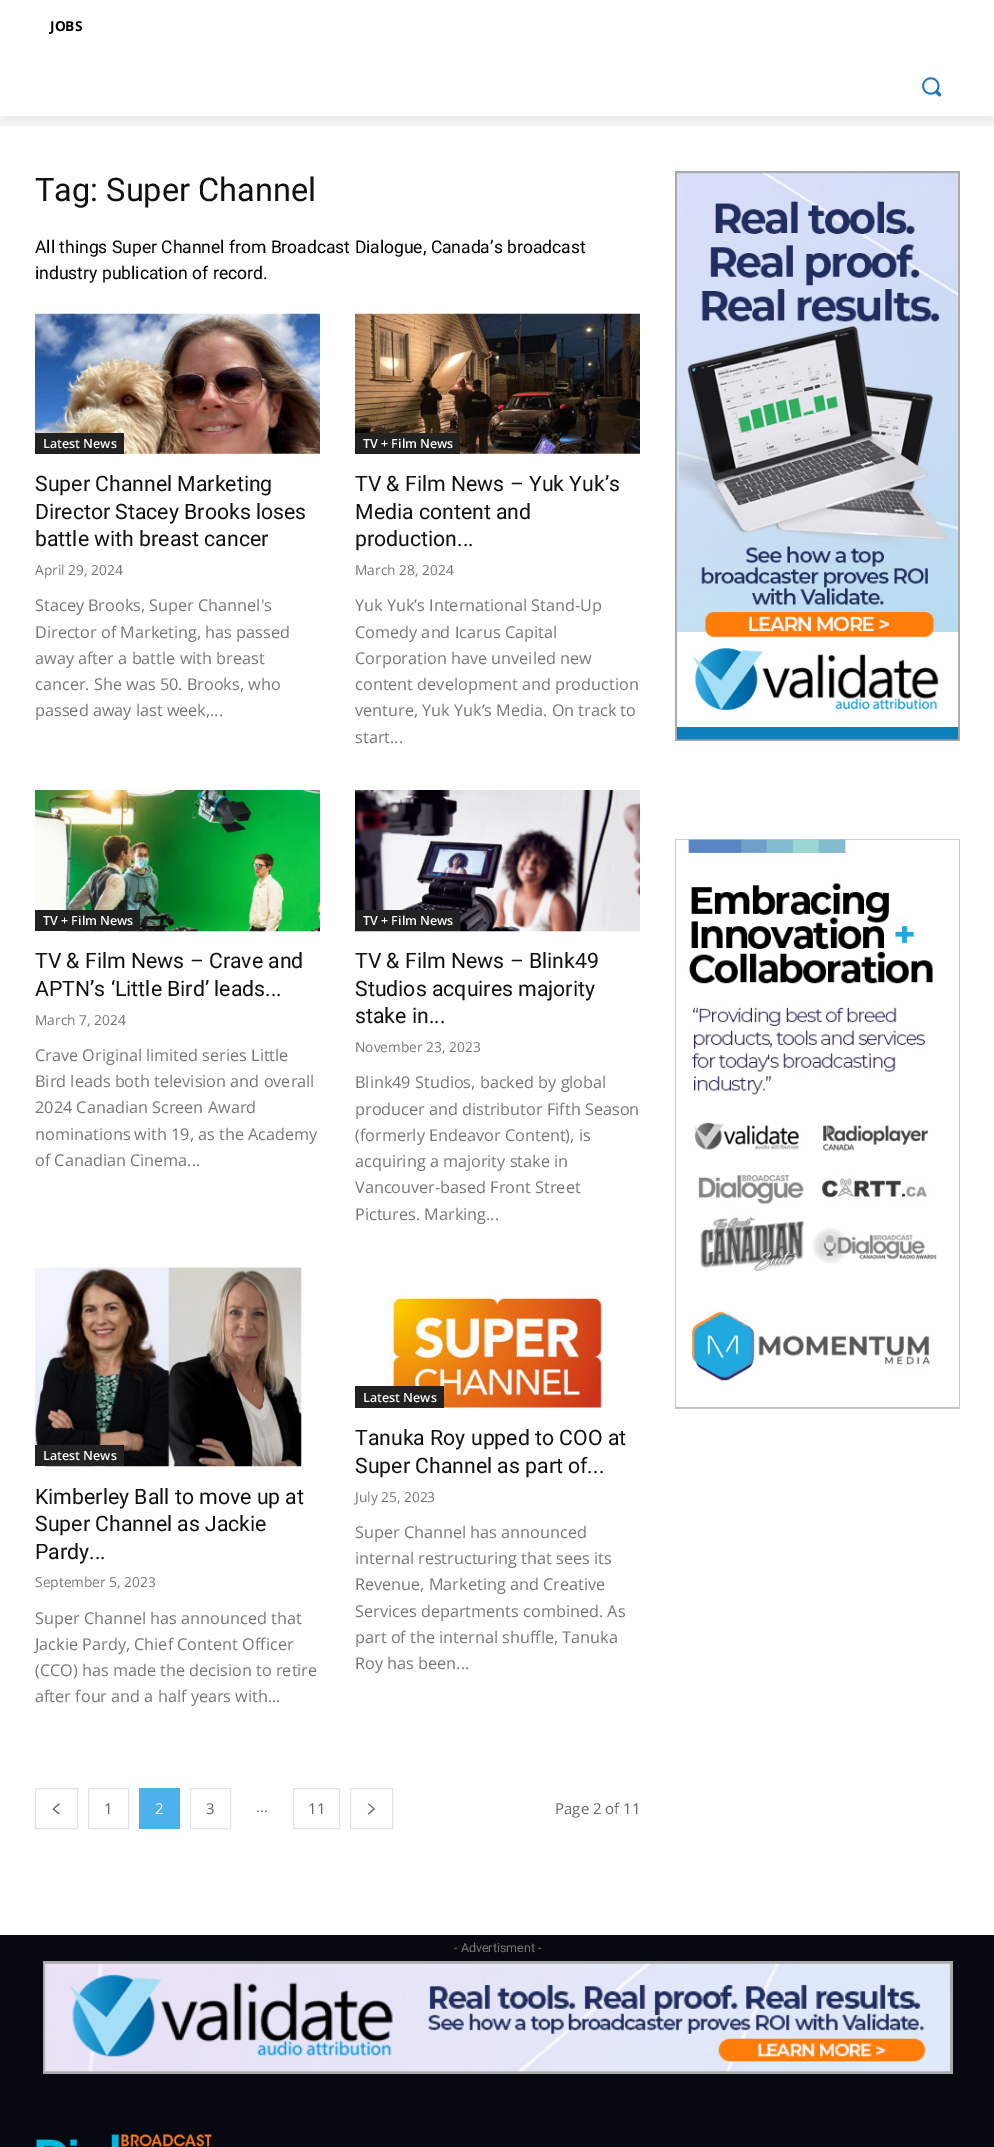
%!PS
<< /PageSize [994 2147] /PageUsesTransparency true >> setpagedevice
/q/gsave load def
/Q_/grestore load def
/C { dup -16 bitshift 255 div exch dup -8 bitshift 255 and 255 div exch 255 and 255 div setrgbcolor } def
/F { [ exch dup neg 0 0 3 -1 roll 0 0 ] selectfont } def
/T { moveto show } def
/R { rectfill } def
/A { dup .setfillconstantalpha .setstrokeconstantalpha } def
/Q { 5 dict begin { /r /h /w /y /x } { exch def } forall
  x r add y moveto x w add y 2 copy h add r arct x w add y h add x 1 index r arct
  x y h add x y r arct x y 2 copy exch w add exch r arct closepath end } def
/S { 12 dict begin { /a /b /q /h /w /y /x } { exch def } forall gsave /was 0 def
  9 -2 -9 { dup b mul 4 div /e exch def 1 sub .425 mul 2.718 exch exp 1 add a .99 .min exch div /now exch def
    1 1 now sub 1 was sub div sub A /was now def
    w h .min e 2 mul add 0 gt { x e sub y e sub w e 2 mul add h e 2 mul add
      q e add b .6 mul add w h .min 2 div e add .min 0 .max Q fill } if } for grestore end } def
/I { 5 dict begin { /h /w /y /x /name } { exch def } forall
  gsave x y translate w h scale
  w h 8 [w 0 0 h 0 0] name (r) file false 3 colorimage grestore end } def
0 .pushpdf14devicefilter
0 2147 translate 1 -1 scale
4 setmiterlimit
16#FFFFFF C
0 0 994 2147 R
q
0 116 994 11 rectclip
16#000000 C
0 -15 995 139 0 5 .08 S
Q_
/OpenSans-Bold 13.75 F
16#000000 C
(JOBS) 50 31 T
(1.rgb) 922 77 20 20 I
/Roboto-Regular 32.5 F
16#111111 C
(Tag: Super Channel) 35 201 T
/Roboto-Regular 17.5 F
16#000000 C
(All things Super Channel from Broadcast Dialogue, Canada’s broadcast) 35 253 T
(industry publication of record.) 35 279 T
(2.rgb) 35 313 285 141 I
16#222222 C
35 433 89 21 R
/OpenSans-SemiBold 12.5 F
16#FFFFFF C
(Latest News) 43 448 T
/Roboto-Regular 21.25 F
16#111111 C
(Super Channel Marketing) 35 491 T
(Director Stacey Brooks loses) 35 519 T
(battle with breast cancer) 35 546 T
/OpenSans-Regular 13.75 F
16#767676 C
(April 29, 2024) 35 575 T
/OpenSans-Regular 16.25 F
(Stacey Brooks, Super Channel's) 35 611 T
(Director of Marketing, has passed) 35 638 T
(away after a battle with breast) 35 664 T
(cancer. She was 50. Brooks, who) 35 690 T
(passed away last week,...) 35 716 T
(3.rgb) 355 313 285 141 I
16#222222 C
355 433 105 21 R
/OpenSans-SemiBold 12.5 F
16#FFFFFF C
(TV + Film News) 363 448 T
/Roboto-Regular 21.25 F
16#111111 C
(TV & Film News – Yuk Yuk’s) 355 491 T
(Media content and) 355 519 T
(production...) 355 546 T
/OpenSans-Regular 13.75 F
16#767676 C
(March 28, 2024) 355 575 T
/OpenSans-Regular 16.25 F
(Yuk Yuk’s International Stand-Up) 355 611 T
(Comedy and Icarus Capital) 355 638 T
(Corporation have unveiled new) 355 664 T
(content development and production) 355 690 T
(venture, Yuk Yuk’s Media. On track to) 355 716 T
(start...) 355 743 T
(4.rgb) 35 790 285 142 I
16#222222 C
35 910 105 21 R
/OpenSans-SemiBold 12.5 F
16#FFFFFF C
(TV + Film News) 43 925 T
/Roboto-Regular 21.25 F
16#111111 C
(TV & Film News – Crave and) 35 968 T
(APTN’s ‘Little Bird’ leads...) 35 996 T
/OpenSans-Regular 13.75 F
16#767676 C
(March 7, 2024) 35 1025 T
/OpenSans-Regular 16.25 F
(Crave Original limited series Little) 35 1061 T
(Bird leads both television and overall) 35 1087 T
(2024 Canadian Screen Award) 35 1113 T
(nominations with 19, as the Academy) 35 1140 T
(of Canadian Cinema...) 35 1166 T
(5.rgb) 355 790 285 142 I
16#222222 C
355 910 105 21 R
/OpenSans-SemiBold 12.5 F
16#FFFFFF C
(TV + Film News) 363 925 T
/Roboto-Regular 21.25 F
16#111111 C
(TV & Film News – Blink49) 355 968 T
(Studios acquires majority) 355 996 T
(stake in...) 355 1023 T
/OpenSans-Regular 13.75 F
16#767676 C
(November 23, 2023) 355 1052 T
/OpenSans-Regular 16.25 F
(Blink49 Studios, backed by global) 355 1088 T
(producer and distributor Fifth Season) 355 1115 T
(\(formerly Endeavor Content\), is) 355 1141 T
(acquiring a majority stake in) 355 1167 T
(Vancouver-based Front Street) 355 1193 T
(Pictures. Marking...) 355 1220 T
(6.rgb) 35 1267 267 200 I
16#222222 C
35 1445 89 21 R
/OpenSans-SemiBold 12.5 F
16#FFFFFF C
(Latest News) 43 1460 T
/Roboto-Regular 21.25 F
16#111111 C
(Kimberley Ball to move up at) 35 1504 T
(Super Channel as Jackie) 35 1531 T
(Pardy...) 35 1559 T
/OpenSans-Regular 13.75 F
16#767676 C
(September 5, 2023) 35 1587 T
/OpenSans-Regular 16.25 F
(Super Channel has announced that) 35 1624 T
(Jackie Pardy, Chief Content Officer) 35 1650 T
(\(CCO\) has made the decision to retire) 35 1676 T
(after four and a half years with...) 35 1702 T
(7.rgb) 390 1295 212 113 I
16#222222 C
355 1386 89 22 R
/OpenSans-SemiBold 12.5 F
16#FFFFFF C
(Latest News) 363 1402 T
/Roboto-Regular 21.25 F
16#111111 C
(Tanuka Roy upped to COO at) 355 1445 T
(Super Channel as part of...) 355 1473 T
/OpenSans-Regular 13.75 F
16#767676 C
(July 25, 2023) 355 1502 T
/OpenSans-Regular 16.25 F
(Super Channel has announced) 355 1538 T
(internal restructuring that sees its) 355 1564 T
(Revenue, Marketing and Creative) 355 1590 T
(Services departments combined. As) 355 1617 T
(part of the internal shuffle, Tanuka) 355 1643 T
(Roy has been...) 355 1669 T
16#E3E3E3 C
35.5 1788.5 42 40 rectstroke
(8.rgb) 52 1803 8 12 I
88.5 1788.5 40 40 rectstroke
/OpenSans-Regular 15 F
16#666666 C
(1) 104 1814 T
16#4DB2EC C
139 1788 41 41 R
16#FFFFFF C
(2) 155 1814 T
16#E3E3E3 C
190.5 1788.5 40 40 rectstroke
16#666666 C
(3) 206 1814 T
(...) 256 1812 T
16#E3E3E3 C
293.5 1788.5 46 40 rectstroke
16#666666 C
(11) 308 1814 T
16#E3E3E3 C
350.5 1788.5 42 40 rectstroke
(9.rgb) 367 1803 8 12 I
16#666666 C
(Page 2 of 11) 555 1814 T
(10.rgb) 675 171 285 570 I
(11.rgb) 675 839 285 570 I
16#080810 C
0 1935 994 212 R
/Roboto-Regular 12.5 F
16#767676 C
(- Advertisment -) 454 1952 T
(12.rgb) 43 1961 910 113 I
(13.rgb) 36 2134 176 13 I
.poppdf14devicefilter showpage
